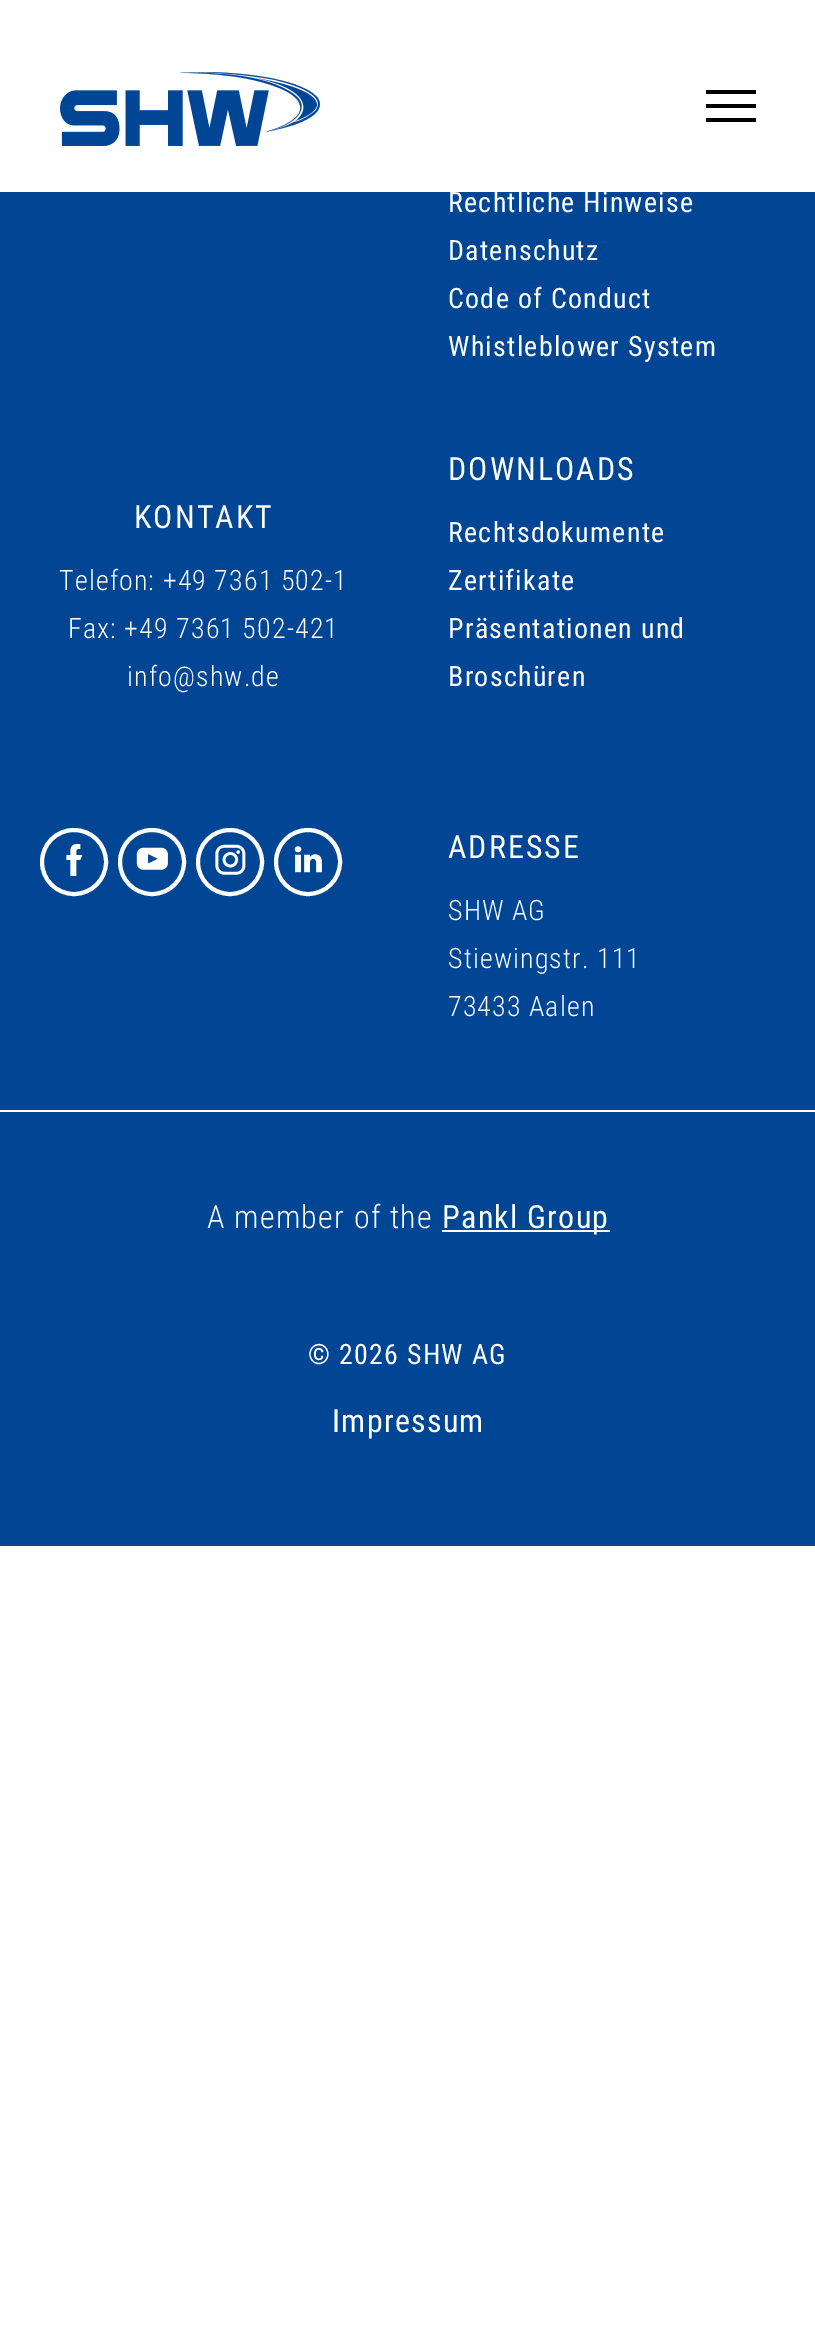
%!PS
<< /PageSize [815 2337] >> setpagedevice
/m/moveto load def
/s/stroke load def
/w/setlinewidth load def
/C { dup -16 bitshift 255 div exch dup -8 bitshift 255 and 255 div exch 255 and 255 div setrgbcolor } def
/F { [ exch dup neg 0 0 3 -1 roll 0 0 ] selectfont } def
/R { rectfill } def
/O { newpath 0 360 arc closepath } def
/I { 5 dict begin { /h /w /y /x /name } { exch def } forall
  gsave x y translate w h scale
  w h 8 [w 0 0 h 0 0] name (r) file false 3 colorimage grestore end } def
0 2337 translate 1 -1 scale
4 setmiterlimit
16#FFFFFF C
0 0 815 2337 R
(1.rgb) 60 72 260 74 I
16#000000 C
706 104 50 4 R
706 90 50 4 R
706 118 50 4 R
16#004695 C
0 192 815 1354 R
/RobotoCondensed-Regular 28 F
16#FFFFFF C
448 212 m 1.25 0 (Rechtliche Hinweise) ashow
448 260 m 1.25 0 (Datenschutz) ashow
448 308 m 1.25 0 (Code of Conduct) ashow
448 356 m 1.25 0 (Whistleblower System) ashow
/RobotoCondensed-Regular 32 F
134 528 m 2 0 (KONTAKT) ashow
/RobotoCondensed-Light 28 F
59 590 m 1.1 0 (Telefon: +49 7361 502-1) ashow
68 638 m 1.1 0 (Fax: +49 7361 502-421) ashow
127 686 m 1.1 0 (info@shw.de) ashow
/RobotoCondensed-Regular 32 F
448 480 m 2 0 (DOWNLOADS) ashow
/RobotoCondensed-Regular 28 F
448 542 m 1.25 0 (Rechtsdokumente) ashow
448 590 m 1.25 0 (Zertifikate) ashow
448 638 m 1.25 0 (Präsentationen und) ashow
448 686 m 1.25 0 (Broschüren) ashow
4 w
74 862 32 O s
(2.rgb) 66 844 17 32 I
152 862 32 O s
(3.rgb) 136 847 32 23 I
230 862 32 O s
(4.rgb) 215 844 31 31 I
308 862 32 O s
(5.rgb) 294 846 28 27 I
/RobotoCondensed-Regular 32 F
448 858 m 2 0 (ADRESSE) ashow
/RobotoCondensed-Light 28 F
448 920 m 1.1 0 (SHW AG) ashow
448 968 m 1.1 0 (Stiewingstr. 111) ashow
448 1016 m 1.1 0 (73433 Aalen) ashow
0 1110 815 2 R
/RobotoCondensed-Light 32 F
207 1228 m 1.25 0 (A member of the) ashow
442 1230 168 2 R
/RobotoCondensed-Regular 32 F
442 1228 m 1.25 0 (Pankl Group) ashow
/RobotoCondensed-Regular 28 F
308 1364 m 1.25 0 (© 2026 SHW AG) ashow
/RobotoCondensed-Regular 32 F
332 1432 m 1.25 0 (Impressum) ashow
showpage
